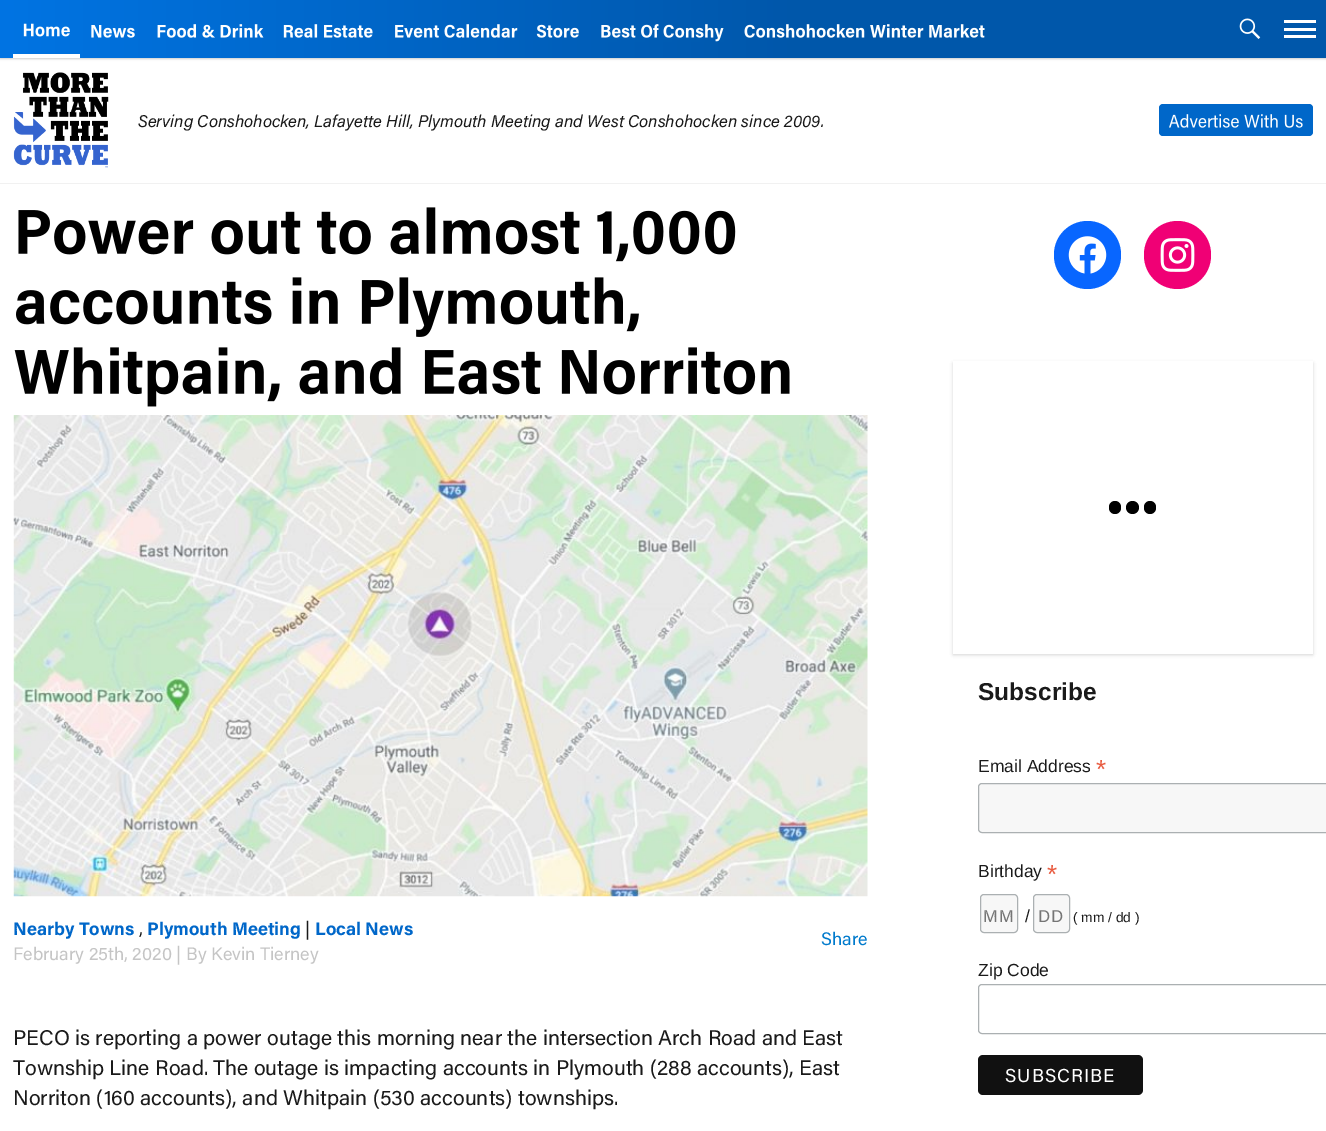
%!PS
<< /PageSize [1326 1131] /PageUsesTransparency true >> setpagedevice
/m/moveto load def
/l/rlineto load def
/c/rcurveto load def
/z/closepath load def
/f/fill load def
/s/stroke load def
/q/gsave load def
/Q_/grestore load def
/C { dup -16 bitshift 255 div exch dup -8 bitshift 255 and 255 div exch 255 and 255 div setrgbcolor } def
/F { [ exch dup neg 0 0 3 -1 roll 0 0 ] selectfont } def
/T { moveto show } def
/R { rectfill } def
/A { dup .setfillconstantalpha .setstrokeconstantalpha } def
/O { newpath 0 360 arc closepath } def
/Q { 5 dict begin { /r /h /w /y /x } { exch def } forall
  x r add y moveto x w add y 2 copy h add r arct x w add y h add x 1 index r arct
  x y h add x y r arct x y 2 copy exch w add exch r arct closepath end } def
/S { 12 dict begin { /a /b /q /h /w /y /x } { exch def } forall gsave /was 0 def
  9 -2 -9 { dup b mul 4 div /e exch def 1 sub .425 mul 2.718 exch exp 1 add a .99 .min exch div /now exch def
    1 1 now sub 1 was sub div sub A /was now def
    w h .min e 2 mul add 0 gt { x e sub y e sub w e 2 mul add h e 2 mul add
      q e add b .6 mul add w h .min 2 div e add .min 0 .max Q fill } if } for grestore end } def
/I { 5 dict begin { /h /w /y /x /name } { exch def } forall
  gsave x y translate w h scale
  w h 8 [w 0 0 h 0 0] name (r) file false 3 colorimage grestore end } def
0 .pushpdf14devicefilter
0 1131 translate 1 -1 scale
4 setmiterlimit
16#FFFFFF C
0 0 1326 1131 R
16#000000 C
0 1 1326 58 0 1 .2 S
q 0 0 m 1326 0 l 0 58 l -1326 0 l z clip newpath
<< /ShadingType 2 /ColorSpace /DeviceRGB /Coords [0 29 1326 29] /Extend [true true] /Function << /FunctionType 3 /Domain [0 1] /Functions [<< /FunctionType 2 /Domain [0 1] /C0 [0 .455 .89] /C1 [0 .341 .667] /N 1 >> << /FunctionType 2 /Domain [0 1] /C0 [0 .341 .667] /C1 [0 .341 .667] /N 1 >>] /Bounds [.6] /Encode [0 1 0 1] >> >> shfill Q_
(1.rgb) 23 23 47 14 I
16#FFFFFF C
13 54 67 4 R
(2.rgb) 91 25 44 13 I
(3.rgb) 157 24 107 14 I
(4.rgb) 283 24 90 14 I
(5.rgb) 395 24 123 14 I
(6.rgb) 536 24 43 14 I
(7.rgb) 601 24 123 18 I
(8.rgb) 744 24 241 14 I
(9.rgb) 1239 18 22 21 I
1284 20 32 3 R
1284 28 32 3 R
1284 35 32 3 R
16#F1F1F1 C
0 183 1326 1 R
(10.rgb) 13 72 96 96 I
/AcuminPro-Italic 17 F
16#1A1A1A C
(Serving Conshohocken, Lafayette Hill, Plymouth Meeting and West Conshohocken since 2009.) 138 127 T
16#0067C9 C
1159 104 154 32 4 Q f
(11.rgb) 1169 114 134 14 I
(12.rgb) 18 207 718 55 I
(13.rgb) 16 277 623 60 I
(14.rgb) 14 347 776 60 I
(15.rgb) 13 415 855 482 I
/AcuminPro-Bold 18.1 F
(Nearby Towns) 13 935 T
(Plymouth Meeting) 147 935 T
/AcuminPro-Regular 18.1 F
16#1A1A1A C
(|) 305 935 T
/AcuminPro-Bold 18.1 F
16#0067C9 C
(Local News) 315 935 T
/AcuminPro-Regular 18.1 F
16#1A1A1A C
(,) 139 935 T
16#007ACC C
(Share) 821 945 T
16#C5C5C5 C
(February 25th, 2020 | By Kevin Tierney) 13 960 T
/AcuminPro-Regular 21.25 F
16#1A1A1A C
(PECO is reporting a power outage this morning near the intersection Arch Road and East) 13 1045 T
(Township Line Road. The outage is impacting accounts in Plymouth \(288 accounts\), East) 13 1075 T
(Norriton \(160 accounts\), and Whitpain \(530 accounts\) townships.) 13 1105 T
16#0866FF C
1054 221 67 68 33.5 Q f
(16.rgb) 1068 236 39 38 I
16#F00075 C
1144 221 67 68 33.5 Q f
(17.rgb) 1160 238 35 34 I
16#000000 C
953 363 360 292 0 1.5 .1 S
953 363 360 292 0 2 .05 S
16#FFFFFF C
953 361 360 293 R
16#000000 C
1109 501 12 13 6 Q f
1132.5 507.5 6.5 O f
1144 501 12 13 6 Q f
/LiberationSans-Bold 24.5 F
16#1A1A1A C
(Subscribe) 978 700 T
/LiberationSans-Regular 17.5 F
(Email Address) 978 772 T
/LiberationSans-Regular 26 F
16#E85C41 C
(*) 1096 778 T
16#F7F7F7 C
982 783 m 344 0 l 0 50 l -344 0 l -2 0 -4 -2 -4 -4 c 0 -42 l 0 -2 2 -4 4 -4 c z f
16#ABB0B2 C
978.5 783.5 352 49 3.5 Q s
/LiberationSans-Regular 17.5 F
16#1A1A1A C
(Birthday) 978 877 T
/LiberationSans-Regular 26 F
16#E85C41 C
(*) 1047 883 T
16#F7F7F7 C
980.5 894.5 37 38 3.5 Q q f Q_
16#ABB0B2 C
s
/AcuminPro-Regular 17 F
16#757575 C
983 922 m 1 0 (MM) ashow
/LiberationSans-Regular 17.5 F
16#1A1A1A C
(/) 1025 922 T
16#F7F7F7 C
1033.5 894.5 36 38 3.5 Q q f Q_
16#ABB0B2 C
s
/AcuminPro-Regular 17 F
16#757575 C
1038 922 m 1 0 (DD) ashow
/LiberationSans-Regular 13.75 F
16#1A1A1A C
(\( mm / dd \)) 1073 922 T
/LiberationSans-Regular 17.5 F
(Zip Code) 978 976 T
16#ABB0B2 C
978.5 984.5 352 49 3.5 Q s
16#111111 C
978 1055 165 40 5 Q f
/AcuminPro-Regular 18.75 F
16#FFFFFF C
1005 1082 m .9 0 (SUBSCRIBE) ashow
.poppdf14devicefilter showpage
